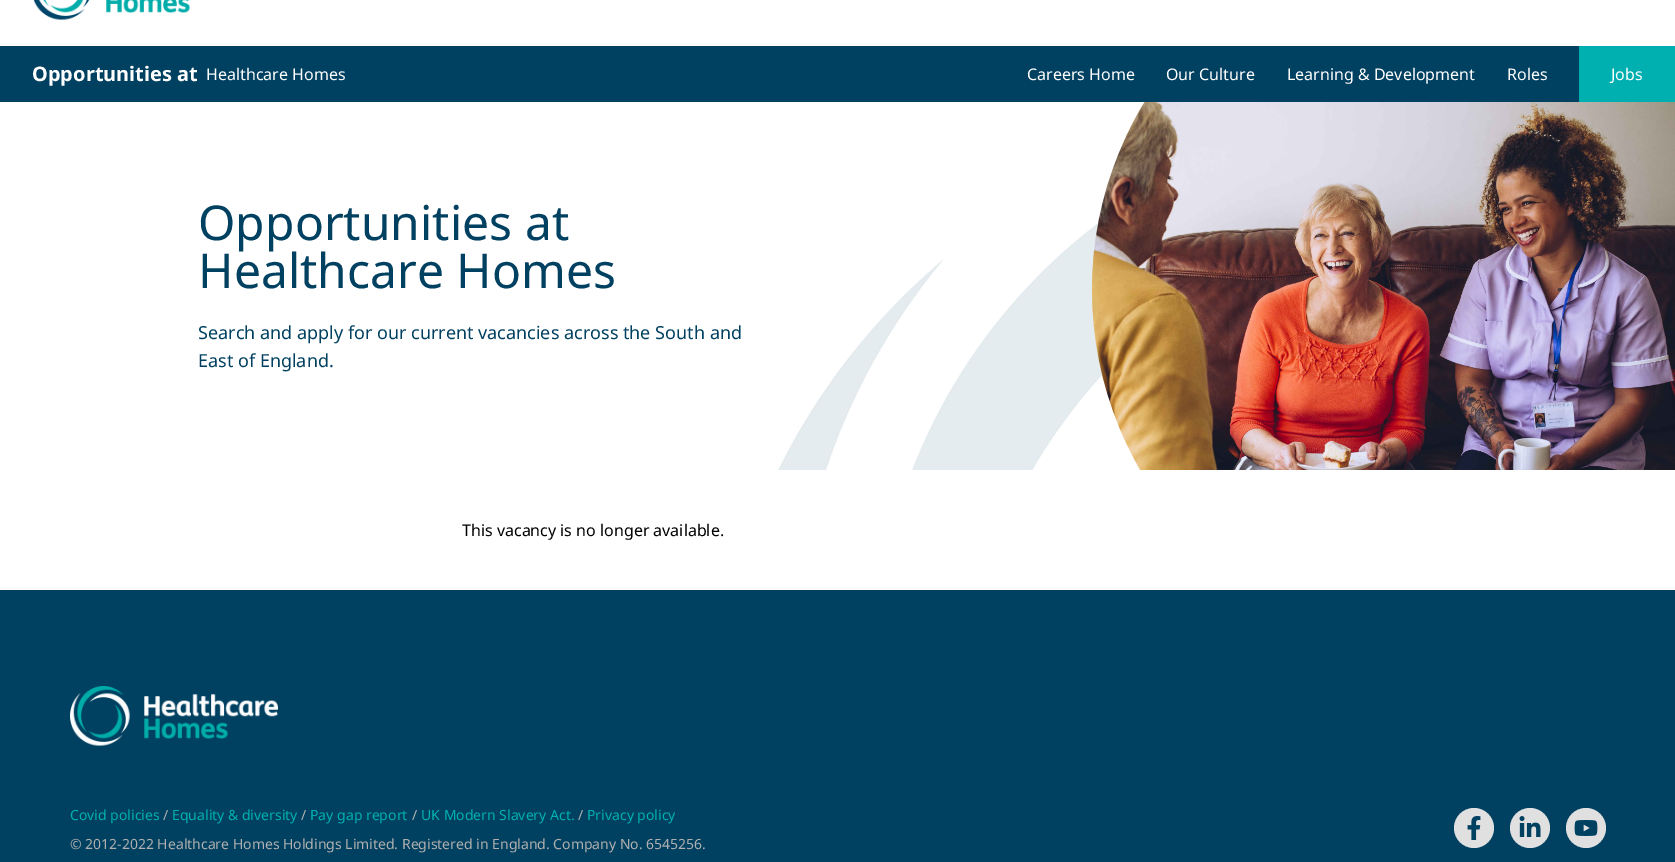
%!PS
<< /PageSize [1675 862] >> setpagedevice
/f/fill load def
/C { dup -16 bitshift 255 div exch dup -8 bitshift 255 and 255 div exch 255 and 255 div setrgbcolor } def
/F { [ exch dup neg 0 0 3 -1 roll 0 0 ] selectfont } def
/T { moveto show } def
/R { rectfill } def
/O { newpath 0 360 arc closepath } def
/I { 5 dict begin { /h /w /y /x /name } { exch def } forall
  gsave x y translate w h scale
  w h 8 [w 0 0 h 0 0] name (r) file false 3 colorimage grestore end } def
0 862 translate 1 -1 scale
4 setmiterlimit
16#FFFFFF C
0 0 1675 862 R
(1.rgb) 33 0 157 20 I
16#004060 C
0 46 1579 56 R
/NotoSans-Bold 20 F
16#FFFFFF C
(Opportunities at) 32 81 T
/NotoSans-Regular 16 F
(Healthcare Homes) 206 80 T
(Careers Home) 1027 80 T
(Our Culture) 1166 80 T
(Learning & Development) 1287 80 T
(Roles) 1507 80 T
16#00B0B0 C
1579 46 96 56 R
16#FFFFFF C
(Jobs) 1611 80 T
(2.rgb) 778 107 364 363 I
/NotoSans-Regular 48 F
16#004060 C
(Opportunities at) 198 240 T
(Healthcare Homes) 198 288 T
/NotoSans-Regular 18 F
(Search and apply for our current vacancies across the South and) 198 339 T
(East of England.) 198 367 T
(3.rgb) 1091 102 584 368 I
/NotoSans-Regular 16 F
16#000000 C
(This vacancy is no longer available.) 462 536 T
16#004060 C
0 590 1675 272 R
(4.rgb) 70 686 208 60 I
/NotoSans-Regular 14 F
16#00B0B0 C
(Covid policies) 70 820 T
16#B0B0B0 C
(/) 163 820 T
16#00B0B0 C
(Equality & diversity) 172 820 T
16#B0B0B0 C
(/) 301 820 T
16#00B0B0 C
(Pay gap report) 310 820 T
16#B0B0B0 C
(/) 412 820 T
16#00B0B0 C
(UK Modern Slavery Act.) 421 820 T
16#B0B0B0 C
(/) 578 820 T
16#00B0B0 C
(Privacy policy) 587 820 T
16#B0B0B0 C
(© 2012-2022 Healthcare Homes Holdings Limited. Registered in England. Company No. 6545256.) 70 849 T
16#E0E0E0 C
1474 828 20 O f
(5.rgb) 1467 816 14 24 I
1530 828 20 O f
(6.rgb) 1519 816 22 21 I
1586 828 20 O f
(7.rgb) 1574 820 24 16 I
showpage
